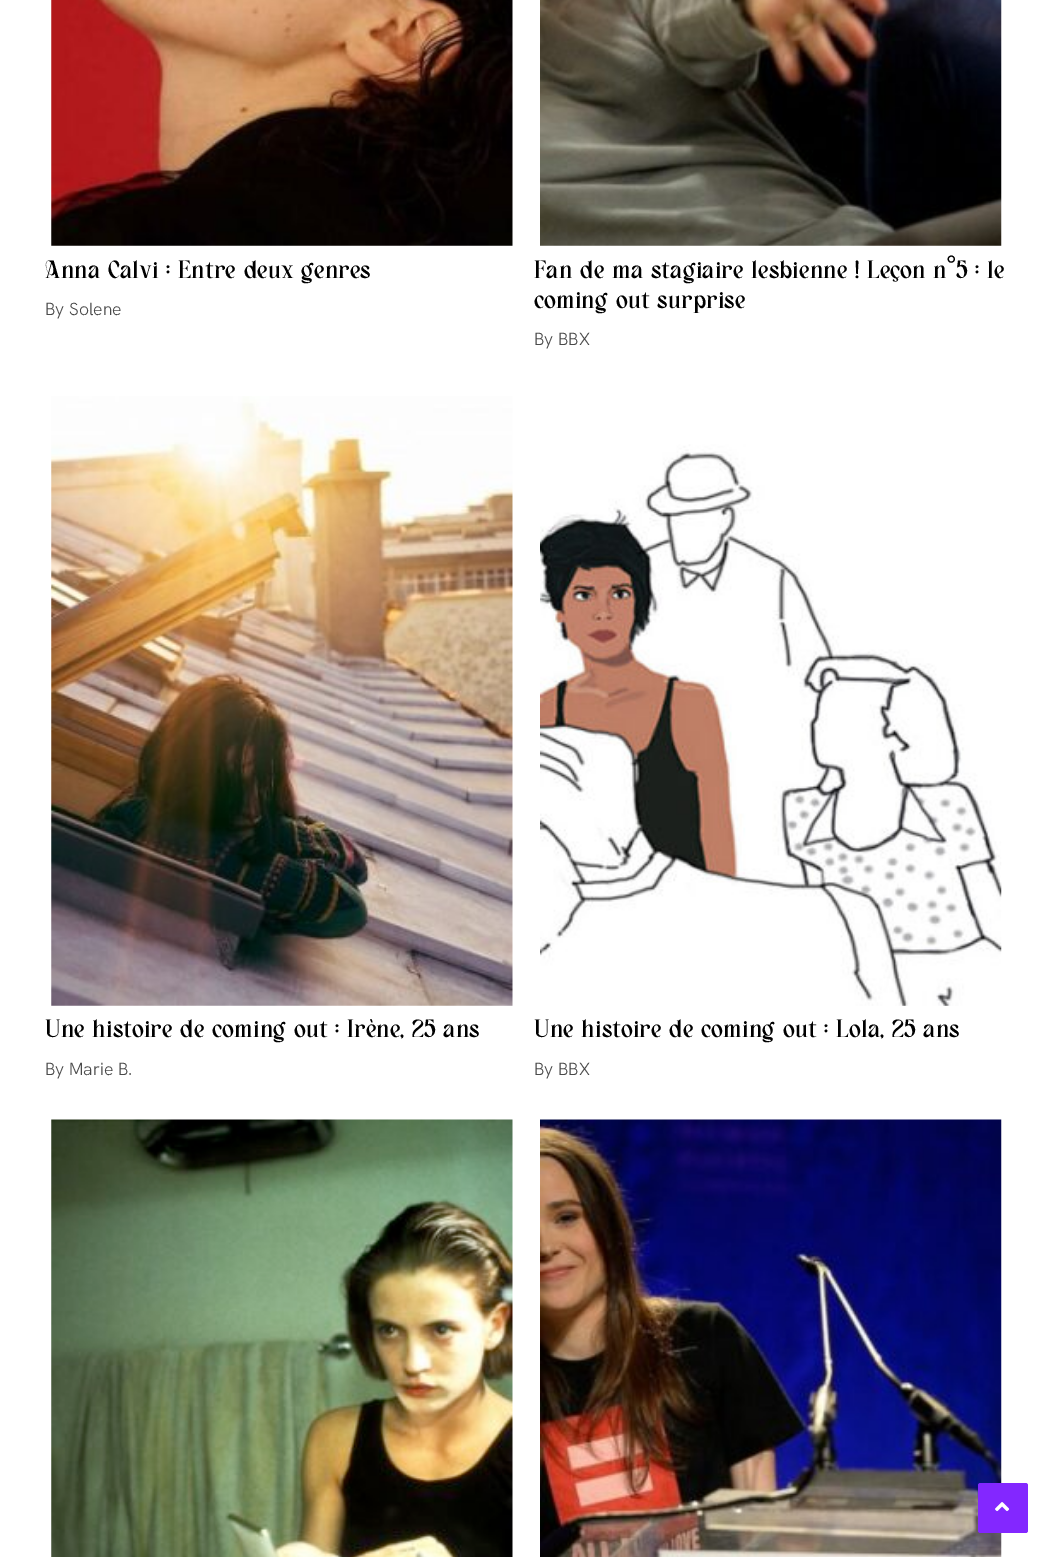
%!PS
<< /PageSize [1052 1557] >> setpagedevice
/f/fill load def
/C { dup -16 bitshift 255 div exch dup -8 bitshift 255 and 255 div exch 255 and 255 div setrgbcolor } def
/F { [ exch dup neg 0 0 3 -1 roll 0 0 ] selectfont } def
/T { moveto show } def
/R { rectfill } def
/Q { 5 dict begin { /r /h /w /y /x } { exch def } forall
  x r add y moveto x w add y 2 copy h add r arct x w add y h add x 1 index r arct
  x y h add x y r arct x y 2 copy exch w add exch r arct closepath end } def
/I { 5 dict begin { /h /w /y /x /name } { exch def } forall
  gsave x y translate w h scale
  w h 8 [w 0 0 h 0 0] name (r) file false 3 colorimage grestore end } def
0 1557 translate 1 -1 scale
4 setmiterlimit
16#FFFFFF C
0 0 1052 1557 R
(1.rgb) 51 0 462 246 I
/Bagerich-Regular 25 F
16#000000 C
(Anna Calvi : Entre deux genres) 45 278 T
/HankenGrotesk-Light 17.5 F
16#4A4A4A C
(By Solene) 45 315 T
(2.rgb) 540 0 462 246 I
/Bagerich-Regular 25 F
16#000000 C
(Fan de ma stagiaire lesbienne ! Leçon n°5 : le) 534 278 T
(coming out surprise) 534 308 T
/HankenGrotesk-Light 17.5 F
16#4A4A4A C
(By BBX) 534 345 T
(3.rgb) 51 396 462 610 I
/Bagerich-Regular 25 F
16#000000 C
(Une histoire de coming out : Irène, 25 ans) 45 1037 T
/HankenGrotesk-Light 17.5 F
16#4A4A4A C
(By Marie B.) 45 1075 T
(4.rgb) 540 444 462 562 I
/Bagerich-Regular 25 F
16#000000 C
(Une histoire de coming out : Lola, 25 ans) 534 1037 T
/HankenGrotesk-Light 17.5 F
16#4A4A4A C
(By BBX) 534 1075 T
(5.rgb) 51 1119 462 438 I
(6.rgb) 540 1119 462 438 I
16#8327FF C
978 1483 50 50 2.5 Q f
(7.rgb) 995 1502 15 10 I
showpage
